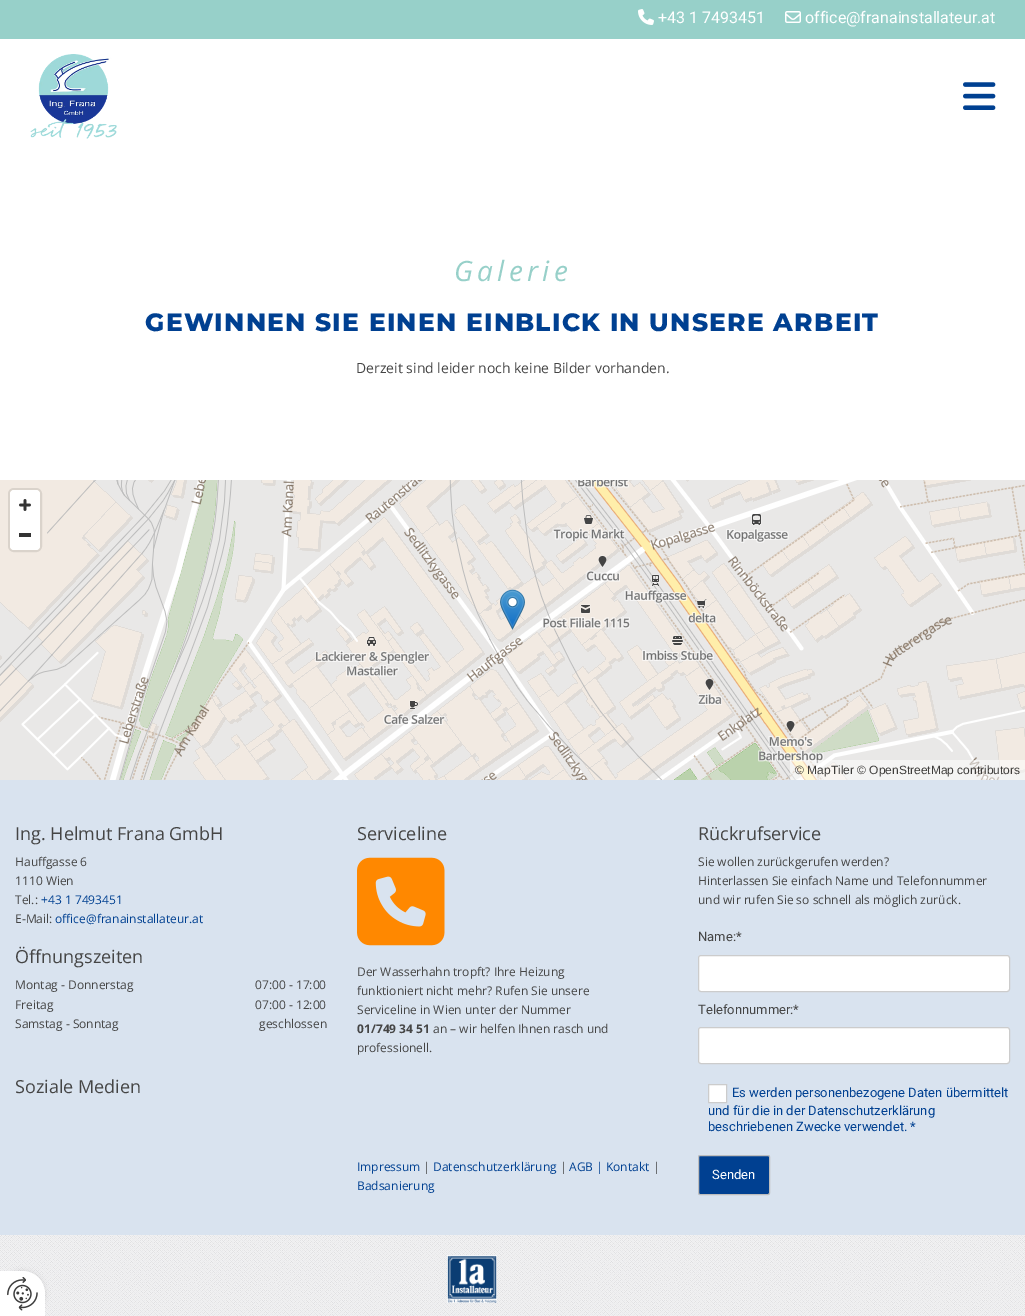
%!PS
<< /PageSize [1025 1316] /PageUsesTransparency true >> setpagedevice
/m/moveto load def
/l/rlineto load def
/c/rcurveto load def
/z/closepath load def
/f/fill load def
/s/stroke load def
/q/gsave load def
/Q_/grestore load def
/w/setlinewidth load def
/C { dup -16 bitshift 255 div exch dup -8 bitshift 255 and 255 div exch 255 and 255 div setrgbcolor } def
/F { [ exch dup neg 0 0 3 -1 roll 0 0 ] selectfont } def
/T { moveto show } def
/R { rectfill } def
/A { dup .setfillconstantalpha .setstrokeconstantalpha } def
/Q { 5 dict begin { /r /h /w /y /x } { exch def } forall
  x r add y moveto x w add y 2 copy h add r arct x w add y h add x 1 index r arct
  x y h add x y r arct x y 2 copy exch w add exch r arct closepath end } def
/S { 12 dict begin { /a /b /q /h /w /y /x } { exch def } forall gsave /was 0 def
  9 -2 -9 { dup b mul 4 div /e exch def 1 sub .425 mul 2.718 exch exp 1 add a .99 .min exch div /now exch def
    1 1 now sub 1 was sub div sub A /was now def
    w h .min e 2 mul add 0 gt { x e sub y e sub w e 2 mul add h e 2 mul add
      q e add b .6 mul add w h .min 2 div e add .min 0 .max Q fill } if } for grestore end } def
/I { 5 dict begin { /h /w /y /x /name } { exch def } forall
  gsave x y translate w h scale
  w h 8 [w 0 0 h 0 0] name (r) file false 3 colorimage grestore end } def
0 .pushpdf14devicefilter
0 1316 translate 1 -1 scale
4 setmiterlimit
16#FFFFFF C
0 0 1025 1316 R
16#97D0C9 C
0 0 1025 39 R
(1.rgb) 638 9 16 16 I
/Roboto-Regular 16 F
16#FFFFFF C
(+43 1 7493451) 658 23 T
(2.rgb) 785 11 16 12 I
(office@franainstallateur.at) 805 23 T
(3.rgb) 30 54 87 85 I
(4.rgb) 963 82 33 28 I
/OpenSans-Italic 28 F
16#97D0C9 C
454 281 m 4.25 0 (Galerie) ashow
/Montserrat-ExtraBold 25 F
16#004091 C
145 331 m 1.25 0 (GEWINNEN SIE EINEN EINBLICK IN UNSERE ARBEIT) ashow
/OpenSans-Regular 14 F
16#454545 C
(Derzeit sind leider noch keine Bilder vorhanden.) 356 373 T
(5.rgb) 0 480 1025 300 I
(6.rgb) 500 589 25 41 I
16#DAD3CB C
2 w
9 489 32 62 5 Q s
16#FFFFFF C
10 490 30 60 4 Q f
(7.rgb) 19 499 12 12 I
16#333333 C
19 533 12 4 R
0.5 A
16#FFFFFF C
790 760 235 20 R
/LiberationSans-Regular 12 F
1 A
16#3E3D3B C
(© MapTiler) 795 774 T
(© OpenStreetMap contributors) 857 774 T
16#D9E3EF C
0 780 1025 455 R
/OpenSans-Regular 18 F
16#454545 C
(Ing. Helmut Frana GmbH) 15 840 T
/OpenSans-Regular 12 F
(Hauffgasse 6) 15 866 T
(1110 Wien) 15 885 T
(Tel.:) 15 904 T
16#004091 C
(+43 1 7493451) 41 904 T
16#454545 C
(E-Mail:) 15 923 T
16#004091 C
(office@franainstallateur.at) 55 923 T
/OpenSans-Regular 18 F
16#454545 C
(Öffnungszeiten) 15 963 T
/OpenSans-Regular 12 F
(Montag - Donnerstag) 15 989 T
(07:00 - 17:00) 255 989 T
(Freitag) 15 1009 T
(07:00 - 12:00) 255 1009 T
(Samstag - Sonntag) 15 1028 T
(geschlossen) 259 1028 T
/OpenSans-Regular 18 F
(Soziale Medien) 15 1093 T
(Serviceline) 357 840 T
(8.rgb) 357 857 88 89 I
/OpenSans-Regular 12 F
(Der Wasserhahn tropft? Ihre Heizung) 357 976 T
(funktioniert nicht mehr? Rufen Sie unsere) 357 995 T
(Serviceline in Wien unter der Nummer) 357 1014 T
/OpenSans-Bold 12 F
(01/749 34 51) 357 1033 T
/OpenSans-Regular 12 F
(an – wir helfen Ihnen rasch und) 433 1033 T
(professionell.) 357 1052 T
16#004091 C
(Impressum) 357 1171 T
16#454545 C
(|) 423 1171 T
16#004091 C
(Datenschutzerklärung) 433 1171 T
16#454545 C
(|) 560 1171 T
16#004091 C
(AGB | Kontakt) 569 1171 T
16#454545 C
(|) 653 1171 T
16#004091 C
(Badsanierung) 357 1190 T
/OpenSans-Regular 18 F
16#454545 C
(Rückrufservice) 698 840 T
/OpenSans-Regular 12 F
(Sie wollen zurückgerufen werden?) 698 866 T
(Hinterlassen Sie einfach Name und Telefonnummer) 698 885 T
(und wir rufen Sie so schnell als möglich zurück.) 698 904 T
/Roboto-Regular 13 F
(Name:*) 698 941 T
16#FFFFFF C
698.5 955.5 311 36 2.5 Q q f Q_
16#CCCCCC C
1 w
s
16#454545 C
(Telefonnummer:*) 698 1014 T
16#FFFFFF C
698.5 1027.5 311 36 2.5 Q q f Q_
16#CCCCCC C
s
16#FFFFFF C
708.5 1084.5 m 18 0 l 0 18 l -18 0 l z q f Q_
16#CCCCCC C
s
16#004091 C
(Es werden personenbezogene Daten übermittelt) 732 1097 T
(und für die in der Datenschutzerklärung) 708 1115 T
(beschriebenen Zwecke verwendet. *) 708 1131 T
698.5 1155.5 71 39 1.5 Q q f Q_
16#BDBDBD C
s
16#FFFFFF C
(Senden) 712 1179 T
(9.rgb) 0 1235 1025 81 I
(10.rgb) 447 1255 50 48 I
16#000000 C
0 1271 45 45 22.5 2.5 .1 S
16#FFFFFF C
0 1271 m 22.5 0 l 12.5 0 22.5 10 22.5 22.5 c 0 22.5 l -45 0 l z f
(11.rgb) 7 1277 31 34 I
.poppdf14devicefilter showpage
